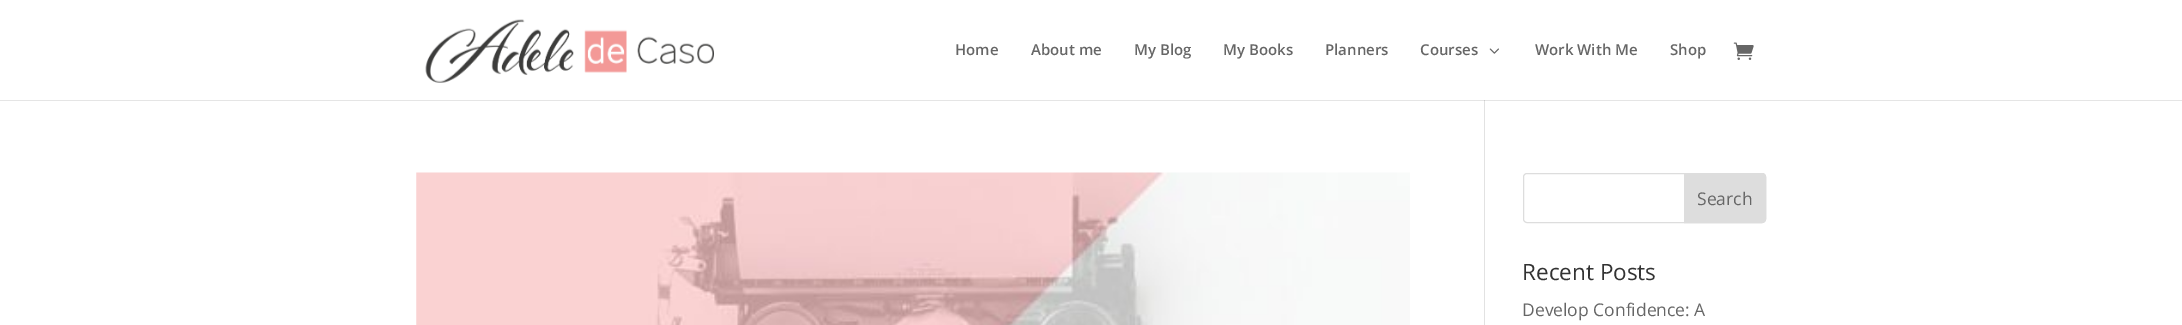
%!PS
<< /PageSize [2182 325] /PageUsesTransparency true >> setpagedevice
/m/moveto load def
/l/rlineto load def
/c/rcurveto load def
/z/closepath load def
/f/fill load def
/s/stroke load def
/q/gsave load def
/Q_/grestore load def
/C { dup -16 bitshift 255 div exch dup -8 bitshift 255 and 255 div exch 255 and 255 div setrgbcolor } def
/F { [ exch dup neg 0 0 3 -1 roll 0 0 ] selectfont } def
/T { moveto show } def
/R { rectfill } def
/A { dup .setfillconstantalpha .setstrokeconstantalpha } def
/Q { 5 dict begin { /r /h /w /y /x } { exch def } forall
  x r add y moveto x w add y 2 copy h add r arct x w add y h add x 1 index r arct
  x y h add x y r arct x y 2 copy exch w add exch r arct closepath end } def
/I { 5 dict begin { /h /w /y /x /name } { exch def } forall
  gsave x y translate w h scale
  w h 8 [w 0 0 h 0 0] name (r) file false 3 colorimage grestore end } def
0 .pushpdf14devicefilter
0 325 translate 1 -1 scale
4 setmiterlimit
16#FFFFFF C
0 0 2182 325 R
16#E2E2E2 C
1484 100 1 225 R
0.1 A
16#000000 C
0 100 m 0 1 l 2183 0 l 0 -100 l -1 0 l 0 99 l z f
1 A
(1.rgb) 425 19 289 64 I
/OpenSans-SemiBold 15 F
16#666666 C
(Home) 955 55 T
(About me) 1031 55 T
(My Blog) 1134 55 T
(My Books) 1223 55 T
(Planners) 1325 55 T
(Courses) 1420 55 T
(2.rgb) 1489 48 10 6 I
(Work With Me) 1535 55 T
(Shop) 1670 55 T
(3.rgb) 1733 42 21 18 I
(4.rgb) 416 172 994 153 I
16#DDDDDD C
1523.5 173.5 242 49 3.5 Q s
1684.5 173.5 m 77.5 0 l 2 0 3.5 1.5 3.5 3.5 c 0 42 l 0 2 -1.5 3.5 -3.5 3.5 c -77.5 0 l z q f Q_
s
/OpenSans-Regular 17.5 F
16#666666 C
(Search) 1697 205 T
/OpenSans-Regular 22.5 F
16#333333 C
(Recent Posts) 1522 280 T
/OpenSans-Regular 17.5 F
16#666666 C
(Develop Confidence: A) 1522 316 T
.poppdf14devicefilter showpage
